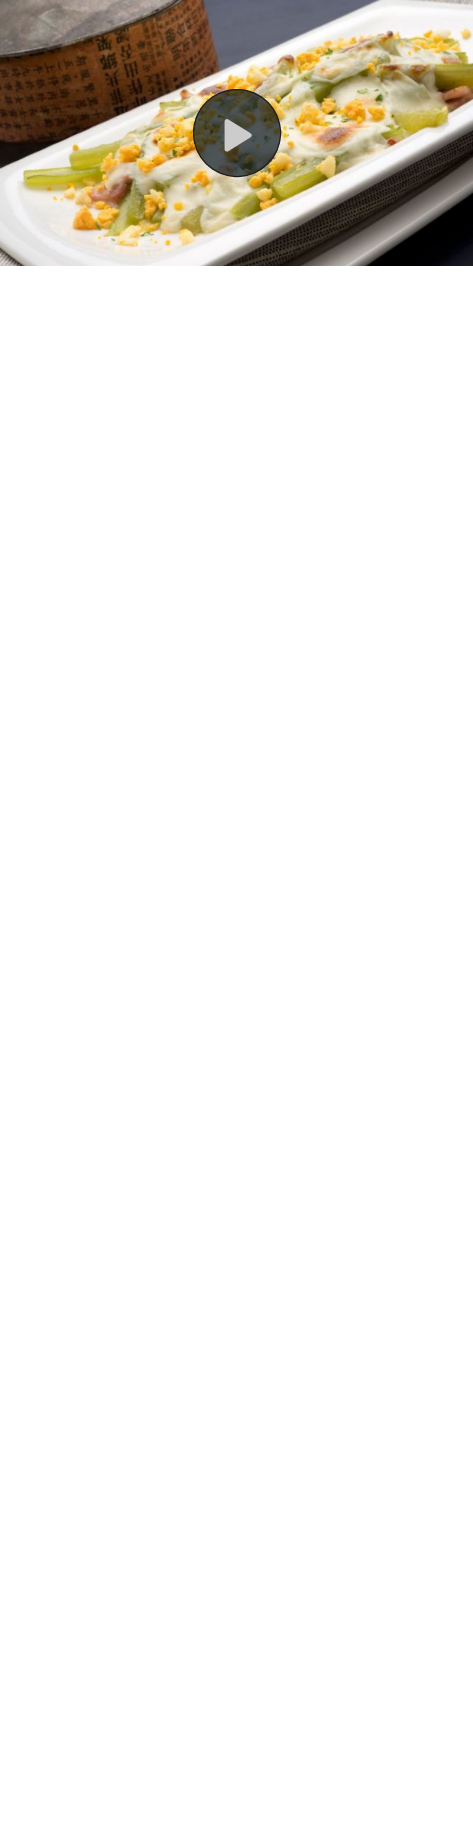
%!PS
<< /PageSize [473 1821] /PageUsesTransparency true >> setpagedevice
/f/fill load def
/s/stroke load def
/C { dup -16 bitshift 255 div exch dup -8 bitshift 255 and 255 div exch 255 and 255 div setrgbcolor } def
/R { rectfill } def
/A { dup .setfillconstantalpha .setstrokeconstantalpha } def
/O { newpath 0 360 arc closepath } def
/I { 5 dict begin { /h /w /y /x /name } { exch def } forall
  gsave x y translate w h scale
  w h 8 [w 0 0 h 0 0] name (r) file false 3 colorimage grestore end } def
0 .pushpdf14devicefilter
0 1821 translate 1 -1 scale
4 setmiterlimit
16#FFFFFF C
0 0 473 1821 R
(1.rgb) 0 0 473 266 I
0.7 A
16#07141E C
237 133 43.5 O f
1 A
16#1F1F1F C
237 133 43.5 O s
(2.rgb) 224 119 28 33 I
.poppdf14devicefilter showpage
